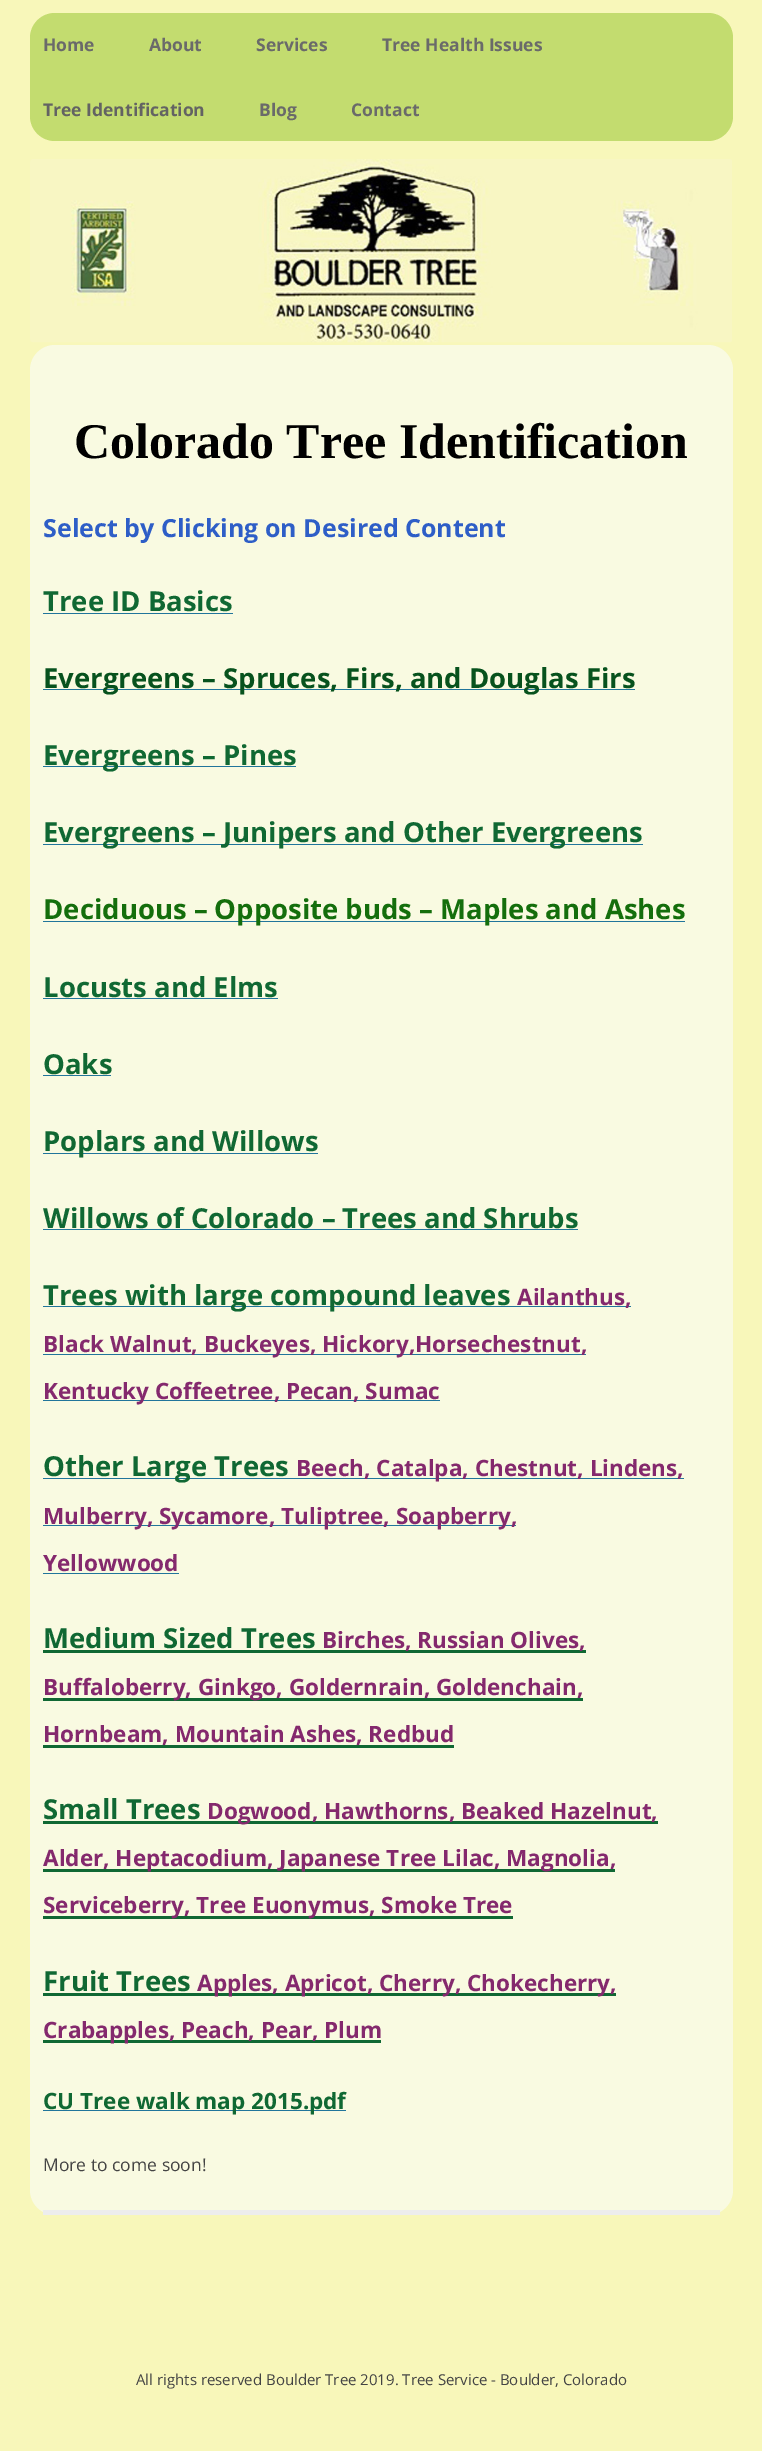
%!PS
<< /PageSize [762 2451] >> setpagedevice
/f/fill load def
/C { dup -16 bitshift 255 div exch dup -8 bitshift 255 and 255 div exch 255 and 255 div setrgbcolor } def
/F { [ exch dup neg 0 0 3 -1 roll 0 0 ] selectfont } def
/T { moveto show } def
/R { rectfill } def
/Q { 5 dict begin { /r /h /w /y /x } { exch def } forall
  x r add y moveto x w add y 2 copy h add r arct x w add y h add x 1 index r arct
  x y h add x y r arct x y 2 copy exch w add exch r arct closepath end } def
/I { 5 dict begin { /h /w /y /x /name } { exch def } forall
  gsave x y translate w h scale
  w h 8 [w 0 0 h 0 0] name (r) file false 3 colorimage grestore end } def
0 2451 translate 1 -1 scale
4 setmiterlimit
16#F8F7BA C
0 0 762 2451 R
16#C3DC6F C
30 13 703 128 25 Q f
/OpenSans-Bold 17.5 F
16#6A6A6A C
(Home) 43 51 T
(About) 149 51 T
(Services) 256 51 T
(Tree Health Issues) 382 51 T
16#636363 C
(Tree Identification) 43 116 T
16#6A6A6A C
(Blog) 259 116 T
(Contact) 351 116 T
(1.rgb) 30 159 702 184 I
16#F9FAE1 C
30 345 703 1870 25 Q f
16#EDEDED C
43 2210 677 5 R
/LiberationSerif-Bold 50 F
16#000000 C
(Colorado Tree Identification) 74 458 T
/OpenSans-Bold 25 F
16#2E5EC7 C
(Select by Clicking on Desired Content) 43 537 T
/OpenSans-Bold 27.5 F
16#106833 C
(Tree ID Basics) 43 611 T
16#21759B C
43 613 190 1 R
43 689 592 1 R
16#07521D C
(Evergreens – Spruces, Firs, and Douglas Firs) 43 688 T
16#21759B C
43 766 253 1 R
16#106833 C
(Evergreens – Pines) 43 765 T
16#21759B C
43 844 600 1 R
16#106833 C
(Evergreens – Junipers and Other Evergreens) 43 842 T
16#21759B C
43 921 642 1 R
16#146E0C C
(Deciduous – Opposite buds – Maples and Ashes) 43 919 T
16#106833 C
(Locusts and Elms) 43 997 T
16#21759B C
43 998 235 1 R
16#106833 C
(Oaks) 43 1074 T
16#21759B C
43 1075 68 1 R
43 1153 275 1 R
16#106833 C
(Poplars and Willows) 43 1151 T
(Willows of Colorado – Trees and Shrubs) 43 1228 T
16#21759B C
43 1229 535 1 R
43 1306 588 1 R
16#106833 C
(Trees with large compound leaves) 43 1305 T
/OpenSans-Bold 22.5 F
16#84296D C
(Ailanthus,) 517 1305 T
16#21759B C
43 1354 543 1 R
16#84296D C
(Black Walnut, Buckeyes, Hickory,Horsechestnut,) 43 1352 T
16#21759B C
43 1400 397 1 R
16#84296D C
(Kentucky Coffeetree, Pecan, Sumac) 43 1399 T
16#21759B C
43 1478 641 1 R
/OpenSans-Bold 27.5 F
16#106833 C
(Other Large Trees) 43 1476 T
/OpenSans-Bold 22.5 F
16#84296D C
(Beech, Catalpa, Chestnut, Lindens,) 296 1476 T
16#21759B C
43 1525 473 1 R
16#84296D C
(Mulberry, Sycamore, Tuliptree, Soapberry,) 43 1524 T
(Yellowwood) 43 1571 T
16#21759B C
43 1573 136 1 R
/OpenSans-Bold 27.5 F
16#106833 C
(Medium Sized Trees) 43 1648 T
43 1650 543 3 R
/OpenSans-Bold 22.5 F
16#84296D C
(Birches, Russian Olives,) 322 1648 T
16#106833 C
43 1698 540 3 R
16#84296D C
(Buffaloberry, Ginkgo, Goldernrain, Goldenchain,) 43 1695 T
(Hornbeam, Mountain Ashes, Redbud) 43 1742 T
16#106833 C
43 1745 411 3 R
/OpenSans-Bold 27.5 F
(Small Trees) 43 1819 T
43 1821 615 3 R
/OpenSans-Bold 22.5 F
16#84296D C
(Dogwood, Hawthorns, Beaked Hazelnut,) 207 1819 T
16#106833 C
43 1869 572 3 R
16#84296D C
(Alder, Heptacodium, Japanese Tree Lilac, Magnolia,) 43 1866 T
16#106833 C
43 1916 470 3 R
16#84296D C
(Serviceberry, Tree Euonymus, Smoke Tree) 43 1913 T
/OpenSans-Bold 27.5 F
16#106833 C
(Fruit Trees) 43 1991 T
43 1993 573 3 R
/OpenSans-Bold 22.5 F
16#84296D C
(Apples, Apricot, Cherry, Chokecherry,) 197 1991 T
16#106833 C
43 2040 338 3 R
16#84296D C
(Crabapples, Peach, Pear, Plum) 43 2038 T
16#21759B C
43 2110 303 1 R
16#106833 C
(CU Tree walk map 2015.pdf) 43 2109 T
/OpenSans-Regular 17.5 F
16#444444 C
(More to come soon!) 43 2171 T
/OpenSans-Regular 15 F
(All rights reserved Boulder Tree 2019. Tree Service - Boulder, Colorado) 136 2385 T
showpage
